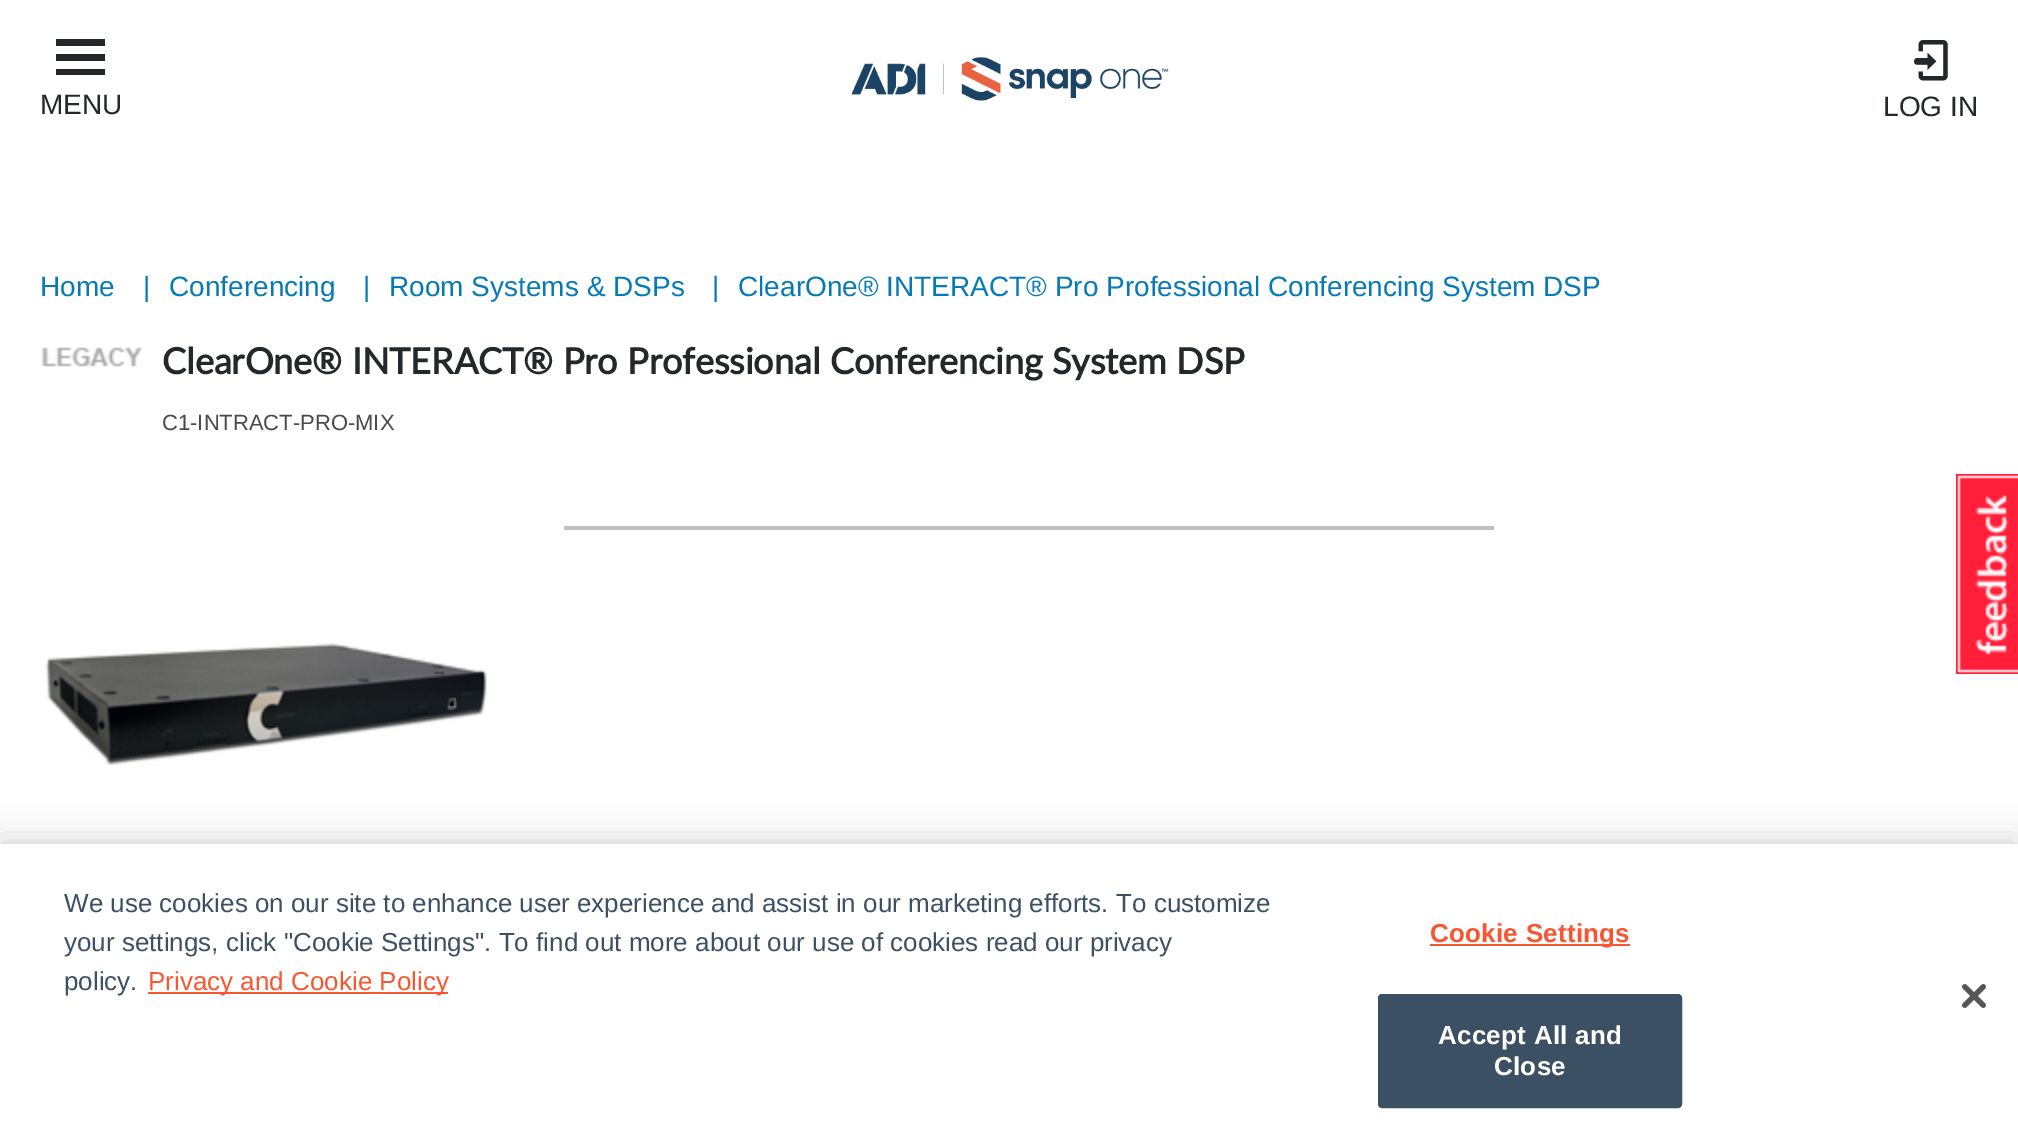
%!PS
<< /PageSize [2018 1148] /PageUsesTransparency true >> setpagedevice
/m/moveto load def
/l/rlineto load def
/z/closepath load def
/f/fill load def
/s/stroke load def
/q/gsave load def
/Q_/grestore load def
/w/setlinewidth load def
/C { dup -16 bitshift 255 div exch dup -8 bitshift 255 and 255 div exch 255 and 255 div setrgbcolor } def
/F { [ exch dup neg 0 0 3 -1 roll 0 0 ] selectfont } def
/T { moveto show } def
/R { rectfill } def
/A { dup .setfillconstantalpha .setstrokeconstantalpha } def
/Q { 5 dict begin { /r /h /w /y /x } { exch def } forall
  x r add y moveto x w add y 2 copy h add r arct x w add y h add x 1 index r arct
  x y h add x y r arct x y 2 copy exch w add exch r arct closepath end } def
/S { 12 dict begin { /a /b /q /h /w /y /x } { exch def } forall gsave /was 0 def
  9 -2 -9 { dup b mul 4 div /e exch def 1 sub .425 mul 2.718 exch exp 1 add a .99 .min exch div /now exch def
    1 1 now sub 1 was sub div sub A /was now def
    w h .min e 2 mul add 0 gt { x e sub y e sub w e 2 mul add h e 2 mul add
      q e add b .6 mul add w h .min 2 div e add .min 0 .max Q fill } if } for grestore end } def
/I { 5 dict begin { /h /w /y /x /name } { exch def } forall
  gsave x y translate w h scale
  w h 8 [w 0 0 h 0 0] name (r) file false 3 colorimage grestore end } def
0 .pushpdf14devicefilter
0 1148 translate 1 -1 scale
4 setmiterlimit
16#FFFFFF C
0 0 2018 1148 R
(1.rgb) 851 57 318 44 I
16#25282A C
105 46 m -49 0 l 0 -7 l 49 0 l z 105 69 m -49 0 l 0 6 l 49 0 l z 105 54 m -49 0 l 0 7 l 49 0 l z f
/LiberationSans-Regular 28 F
(MENU) 40 114 T
(2.rgb) 1914 40 34 41 I
(LOG IN) 1883 116 T
16#057AB9 C
(Home) 40 296 T
(|) 143 296 T
(Conferencing) 169 296 T
(|) 363 296 T
(Room Systems & DSPs) 389 296 T
(|) 712 296 T
(ClearOne® INTERACT® Pro Professional Conferencing System DSP) 738 296 T
(3.rgb) 41 347 101 20 I
/Lato-Bold 36 F
16#25282A C
(ClearOne® INTERACT® Pro Professional Conferencing System DSP) 162 374 T
/LiberationSans-Regular 22 F
16#4A4A4A C
(C1-INTRACT-PRO-MIX) 162 430 T
16#C3C0C0 C
564 526 930 4 R
(4.rgb) 45 643 442 123 I
16#FF1F3A C
1956 474 62 200 R
(5.rgb) 1957 475 61 198 I
16#000000 C
0 844 2018 304 0 18 .2 S
16#FFFFFF C
0 844 2018 304 R
/LiberationSans-Regular 26 F
16#3C5064 C
(We use cookies on our site to enhance user experience and assist in our marketing efforts. To customize) 64 912 T
(your settings, click "Cookie Settings". To find out more about our use of cookies read our privacy) 64 951 T
(policy.) 64 990 T
16#F75631 C
148 992 300 2 R
(Privacy and Cookie Policy) 148 990 T
1430 944 200 2 R
/LiberationSans-Bold 26 F
1430 942 m .25 0 (Cookie Settings) ashow
16#3C5064 C
1379 995 302 112 3 Q q f Q_
2 w
s
16#FFFFFF C
1438 1044 m .25 0 (Accept All and) ashow
1494 1075 m .25 0 (Close) ashow
(6.rgb) 1962 984 24 24 I
.poppdf14devicefilter showpage
